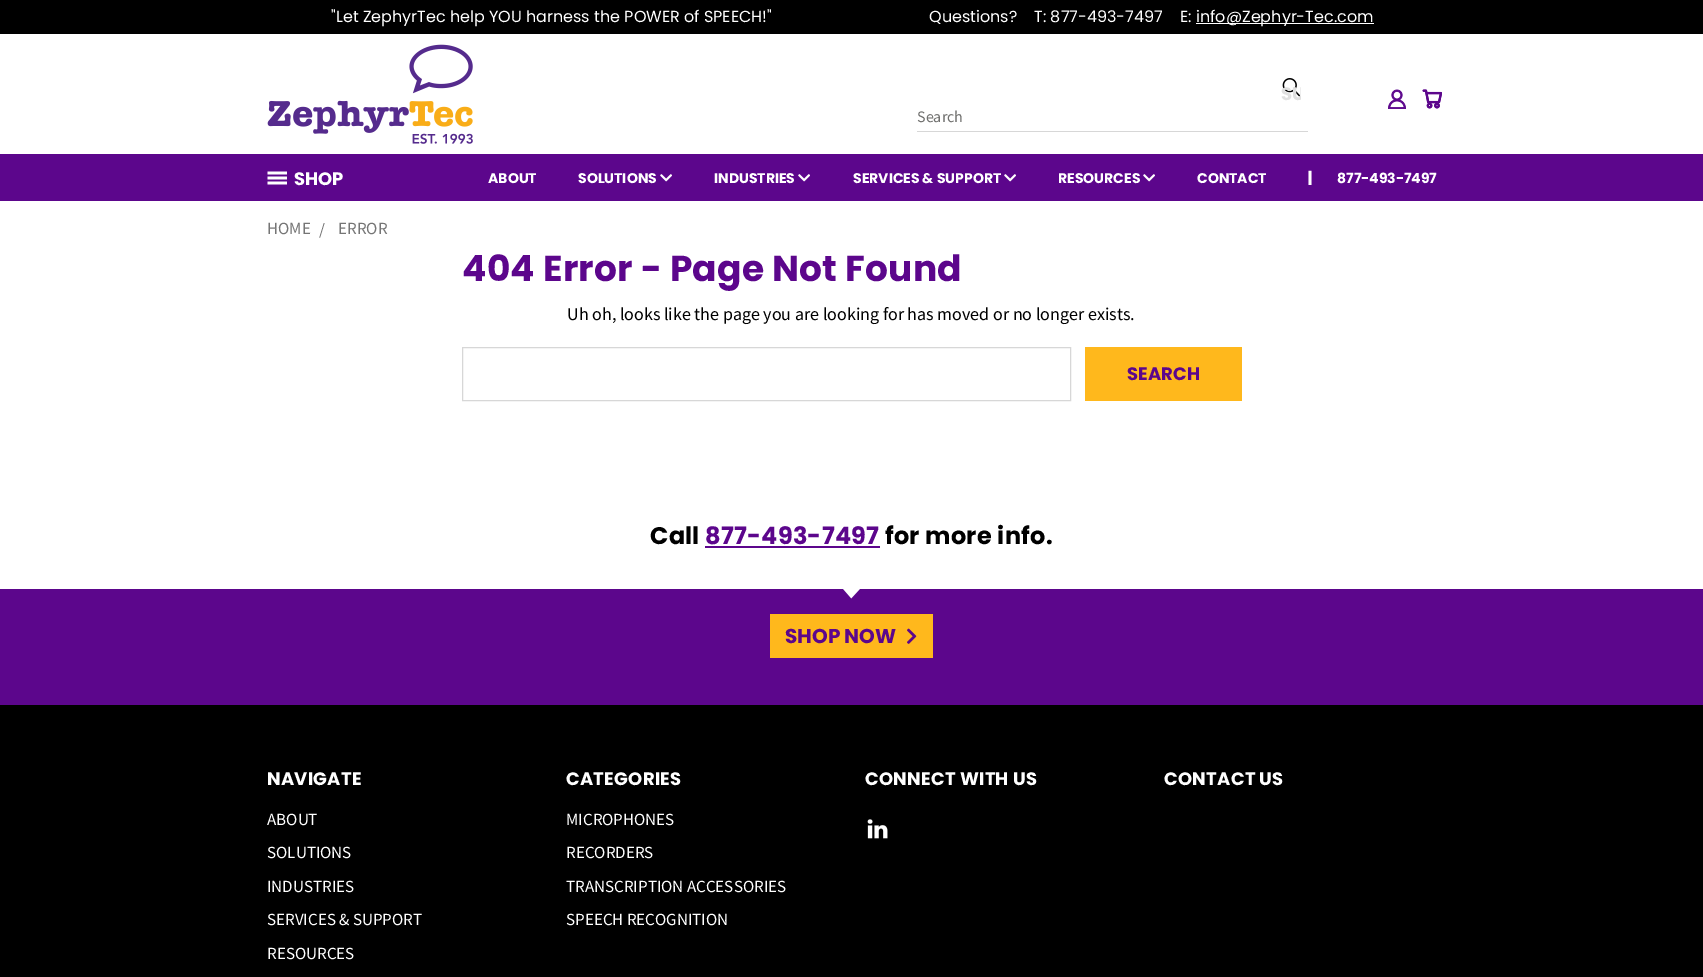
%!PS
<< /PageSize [1703 977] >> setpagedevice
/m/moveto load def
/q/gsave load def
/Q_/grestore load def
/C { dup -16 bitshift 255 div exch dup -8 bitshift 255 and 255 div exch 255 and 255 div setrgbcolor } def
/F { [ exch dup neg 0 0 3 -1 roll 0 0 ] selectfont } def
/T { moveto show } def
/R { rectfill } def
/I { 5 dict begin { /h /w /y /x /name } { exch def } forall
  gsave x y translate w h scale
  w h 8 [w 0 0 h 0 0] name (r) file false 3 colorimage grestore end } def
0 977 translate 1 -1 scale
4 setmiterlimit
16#FFFFFF C
0 0 1703 977 R
16#000000 C
0 0 1703 34 R
/Poppins-Regular 16 F
16#FFFFFF C
("Let ZephyrTec help YOU harness the POWER of SPEECH!") 331 22 T
(Questions?    T: 877-493-7497    E:) 929 22 T
1196 23 178 1 R
(info@Zephyr-Tec.com) 1196 22 T
(1.rgb) 267 44 206 100 I
(2.rgb) 1282 78 18 19 I
q
1281 84 20 20 rectclip
/Poppins-Bold 18 F
16#E0E0E0 C
(SU) 1281 100 T
Q_
16#D7D7D7 C
917 131 391 1 R
/SourceSansPro-Regular 16 F
16#70706E C
(Search) 917 122 T
(3.rgb) 1388 89 18 20 I
(4.rgb) 1422 89 20 20 I
16#5C068C C
0 154 1703 47 R
(5.rgb) 267 171 20 14 I
/Poppins-Bold 18 F
16#FFFFFF C
(SHOP) 294 185 T
/Poppins-Bold 14 F
(ABOUT) 488 183 T
(SOLUTIONS) 578 183 T
(6.rgb) 660 174 12 8 I
(INDUSTRIES) 714 183 T
(6.rgb) 798 174 12 8 I
(SERVICES & SUPPORT) 853 183 T
(6.rgb) 1004 174 12 8 I
(RESOURCES) 1058 183 T
(6.rgb) 1143 174 12 8 I
(CONTACT) 1197 183 T
/Poppins-ExtraBold 15 F
(|) 1308 183 T
/Poppins-Bold 14 F
(877-493-7497) 1337 183 T
/SourceSansPro-Regular 17 F
16#757575 C
(HOME) 267 234 T
(/) 319 235 T
(ERROR) 338 234 T
/Poppins-Bold 36 F
16#5C068C C
462 281 m .25 0 (404 Error - Page Not Found) ashow
/SourceSansPro-Regular 18 F
16#000000 C
(Uh oh, looks like the page you are looking for has moved or no longer exists.) 567 320 T
16#D7D7D7 C
462.5 347.5 608 53 rectstroke
16#FFB81C C
1085 347 157 54 R
/Poppins-Bold 18 F
16#5C068C C
(SEARCH) 1127 380 T
/Poppins-Bold 24 F
16#000000 C
650 544 m .25 0 (Call) ashow
16#5C068C C
705 544 m .25 0 (877-493-7497) ashow
705 546 175 2 R
16#000000 C
885 544 m .25 0 (for more info.) ashow
16#5C068C C
0 589 1703 116 R
(7.rgb) 843 589 17 10 I
16#FFB81C C
770 614 163 44 R
/Poppins-Bold 20 F
16#5C068C C
(SHOP NOW) 785 643 T
(8.rgb) 907 628 10 16 I
16#000000 C
0 705 1703 272 R
/Poppins-Bold 18 F
16#FFFFFF C
267 785 m .25 0 (NAVIGATE) ashow
/SourceSansPro-Regular 17 F
(ABOUT) 267 825 T
(SOLUTIONS) 267 858 T
(INDUSTRIES) 267 892 T
(SERVICES & SUPPORT) 267 925 T
(RESOURCES) 267 959 T
/Poppins-Bold 18 F
566 785 m .25 0 (CATEGORIES) ashow
/SourceSansPro-Regular 17 F
(MICROPHONES) 566 825 T
(RECORDERS) 566 858 T
(TRANSCRIPTION ACCESSORIES) 566 892 T
(SPEECH RECOGNITION) 566 925 T
/Poppins-Bold 18 F
865 785 m .25 0 (CONNECT WITH US) ashow
(9.rgb) 867 819 21 20 I
1164 785 m .25 0 (CONTACT US) ashow
showpage
